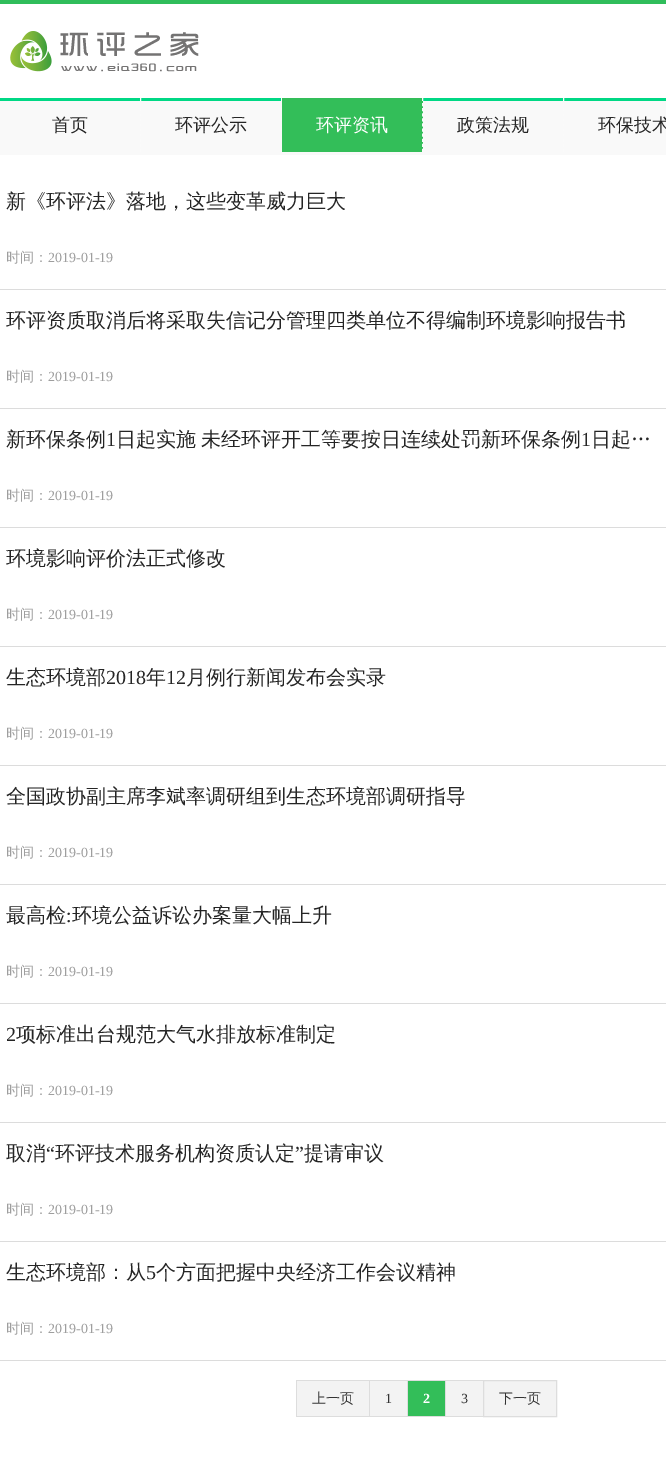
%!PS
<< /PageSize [666 1477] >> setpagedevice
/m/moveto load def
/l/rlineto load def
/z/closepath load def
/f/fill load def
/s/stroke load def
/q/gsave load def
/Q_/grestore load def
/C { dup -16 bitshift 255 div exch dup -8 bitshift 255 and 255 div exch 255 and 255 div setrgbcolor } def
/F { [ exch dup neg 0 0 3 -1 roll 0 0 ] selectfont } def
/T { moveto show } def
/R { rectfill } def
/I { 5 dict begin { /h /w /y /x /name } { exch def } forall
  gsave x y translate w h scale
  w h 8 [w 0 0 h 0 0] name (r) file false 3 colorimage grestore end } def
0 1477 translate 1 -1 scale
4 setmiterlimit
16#FFFFFF C
0 0 666 1477 R
16#30BD5B C
0 0 666 4 R
(1.rgb) 10 31 189 41 I
16#F9F9F9 C
0 101 666 54 R
16#00D885 C
0 98 666 3 R
16#FAFAFA C
[3 2.1] 0 setdash
140.5 98 m 0 54 l s
/WenQuanYiZenHei-Medium 18 F
16#252525 C
(首页) 52 131 T
16#FAFAFA C
281.5 98 m 0 54 l s
16#252525 C
(环评公示) 175 131 T
16#33BE59 C
282 98 141 54 R
16#FAFAFA C
422.5 98 m 0 54 l s
16#FFFFFF C
(环评资讯) 316 131 T
16#FAFAFA C
563.5 98 m 0 54 l s
16#252525 C
(政策法规) 457 131 T
(环保技术) 598 131 T
16#DCDCDC C
0 289 666 1 R
/WenQuanYiZenHei-Medium 20 F
16#252525 C
(新《环评法》落地，这些变革威力巨大) 6 208 T
/WenQuanYiZenHei-Medium 14 F
16#9E9E9E C
(时间：) 6 262 T
/LiberationSerif-Regular 14 F
(2019-01-19) 48 262 T
16#DCDCDC C
0 408 666 1 R
/WenQuanYiZenHei-Medium 20 F
16#252525 C
(环评资质取消后将采取失信记分管理四类单位不得编制环境影响报告书) 6 327 T
/WenQuanYiZenHei-Medium 14 F
16#9E9E9E C
(时间：) 6 381 T
/LiberationSerif-Regular 14 F
(2019-01-19) 48 381 T
16#DCDCDC C
0 527 666 1 R
/WenQuanYiZenHei-Medium 20 F
16#252525 C
(新环保条例) 6 446 T
/LiberationSerif-Regular 20 F
(1) 106 446 T
/WenQuanYiZenHei-Medium 20 F
116 446 m -1 0 32 (日起实施 未经环评开工等要按日连续处罚新环保条例) widthshow
/LiberationSerif-Regular 20 F
(1) 581 446 T
/WenQuanYiZenHei-Medium 20 F
591 446 m -1 0 32 (日起…) widthshow
/WenQuanYiZenHei-Medium 14 F
16#9E9E9E C
(时间：) 6 500 T
/LiberationSerif-Regular 14 F
(2019-01-19) 48 500 T
16#DCDCDC C
0 646 666 1 R
/WenQuanYiZenHei-Medium 20 F
16#252525 C
(环境影响评价法正式修改) 6 565 T
/WenQuanYiZenHei-Medium 14 F
16#9E9E9E C
(时间：) 6 619 T
/LiberationSerif-Regular 14 F
(2019-01-19) 48 619 T
16#DCDCDC C
0 765 666 1 R
/WenQuanYiZenHei-Medium 20 F
16#252525 C
(生态环境部) 6 684 T
/LiberationSerif-Regular 20 F
(2018) 106 684 T
/WenQuanYiZenHei-Medium 20 F
(年) 146 684 T
/LiberationSerif-Regular 20 F
(12) 166 684 T
/WenQuanYiZenHei-Medium 20 F
(月例行新闻发布会实录) 186 684 T
/WenQuanYiZenHei-Medium 14 F
16#9E9E9E C
(时间：) 6 738 T
/LiberationSerif-Regular 14 F
(2019-01-19) 48 738 T
16#DCDCDC C
0 884 666 1 R
/WenQuanYiZenHei-Medium 20 F
16#252525 C
(全国政协副主席李斌率调研组到生态环境部调研指导) 6 803 T
/WenQuanYiZenHei-Medium 14 F
16#9E9E9E C
(时间：) 6 857 T
/LiberationSerif-Regular 14 F
(2019-01-19) 48 857 T
16#DCDCDC C
0 1003 666 1 R
/WenQuanYiZenHei-Medium 20 F
16#252525 C
(最高检) 6 922 T
/LiberationSerif-Regular 20 F
(:) 66 922 T
/WenQuanYiZenHei-Medium 20 F
(环境公益诉讼办案量大幅上升) 72 922 T
/WenQuanYiZenHei-Medium 14 F
16#9E9E9E C
(时间：) 6 976 T
/LiberationSerif-Regular 14 F
(2019-01-19) 48 976 T
16#DCDCDC C
0 1122 666 1 R
/LiberationSerif-Regular 20 F
16#252525 C
(2) 6 1041 T
/WenQuanYiZenHei-Medium 20 F
(项标准出台规范大气水排放标准制定) 16 1041 T
/WenQuanYiZenHei-Medium 14 F
16#9E9E9E C
(时间：) 6 1095 T
/LiberationSerif-Regular 14 F
(2019-01-19) 48 1095 T
16#DCDCDC C
0 1241 666 1 R
/WenQuanYiZenHei-Medium 20 F
16#252525 C
(取消) 6 1160 T
/LiberationSerif-Regular 20 F
(“) 46 1160 T
/WenQuanYiZenHei-Medium 20 F
(环评技术服务机构资质认定) 55 1160 T
/LiberationSerif-Regular 20 F
(”) 295 1160 T
/WenQuanYiZenHei-Medium 20 F
(提请审议) 304 1160 T
/WenQuanYiZenHei-Medium 14 F
16#9E9E9E C
(时间：) 6 1214 T
/LiberationSerif-Regular 14 F
(2019-01-19) 48 1214 T
16#DCDCDC C
0 1360 666 1 R
/WenQuanYiZenHei-Medium 20 F
16#252525 C
(生态环境部：从) 6 1279 T
/LiberationSerif-Regular 20 F
(5) 146 1279 T
/WenQuanYiZenHei-Medium 20 F
(个方面把握中央经济工作会议精神) 156 1279 T
/WenQuanYiZenHei-Medium 14 F
16#9E9E9E C
(时间：) 6 1333 T
/LiberationSerif-Regular 14 F
(2019-01-19) 48 1333 T
16#F3F3F3 C
297 1381 72 35 R
/WenQuanYiZenHei-Medium 14 F
16#333333 C
(上一页) 312 1403 T
16#DDDDDD C
296 1380 187 1 R
296 1416 187 1 R
296 1380 1 37 R
16#F3F3F3 C
370 1381 37 35 R
/LiberationSerif-Regular 14 F
16#333333 C
(1) 385 1403 T
16#DDDDDD C
369 1380 1 37 R
16#33BE59 C
408 1381 37 35 R
/LiberationSerif-Bold 14 F
16#FFFFFF C
(2) 423 1403 T
16#DDDDDD C
407 1380 1 37 R
16#F3F3F3 C
446 1381 37 35 R
/LiberationSerif-Regular 14 F
16#333333 C
(3) 461 1403 T
16#DDDDDD C
445 1380 1 37 R
16#F3F3F3 C
483.5 1380.5 m 73 0 l 0 36 l -73 0 l z q f Q_
16#DDDDDD C
[] 0 setdash
s
/WenQuanYiZenHei-Medium 14 F
16#333333 C
(下一页) 499 1403 T
showpage
